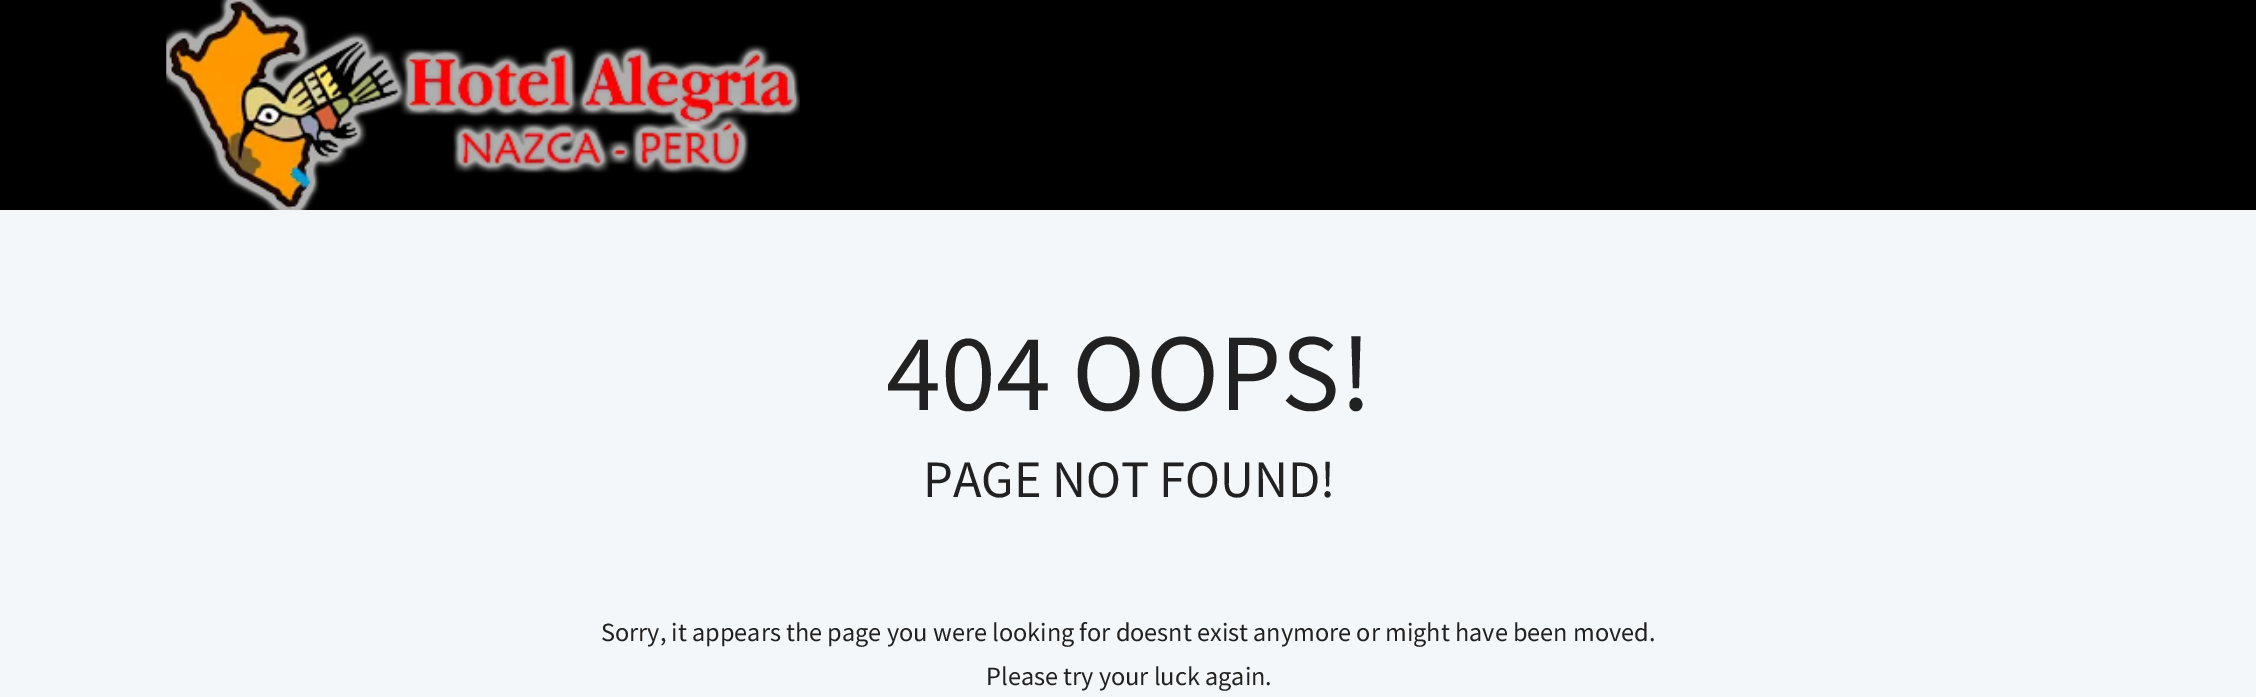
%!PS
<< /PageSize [2256 697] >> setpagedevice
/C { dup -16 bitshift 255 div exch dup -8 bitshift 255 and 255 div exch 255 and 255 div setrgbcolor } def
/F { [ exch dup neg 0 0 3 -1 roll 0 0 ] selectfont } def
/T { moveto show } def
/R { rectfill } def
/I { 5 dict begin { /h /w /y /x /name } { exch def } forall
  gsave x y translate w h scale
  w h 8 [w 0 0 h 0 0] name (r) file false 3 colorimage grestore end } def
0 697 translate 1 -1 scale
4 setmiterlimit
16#F4F7F9 C
0 0 2256 697 R
16#000000 C
0 0 2256 210 R
(1.rgb) 166 0 634 210 I
/SourceSansPro-Regular 110.25 F
16#212121 C
(404 OOPS!) 886 410 T
/SourceSansPro-Regular 52.5 F
(PAGE NOT FOUND!) 923 497 T
/SourceSansPro-Regular 26.25 F
(Sorry, it appears the page you were looking for doesnt exist anymore or might have been moved.) 601 641 T
(Please try your luck again.) 986 685 T
showpage
